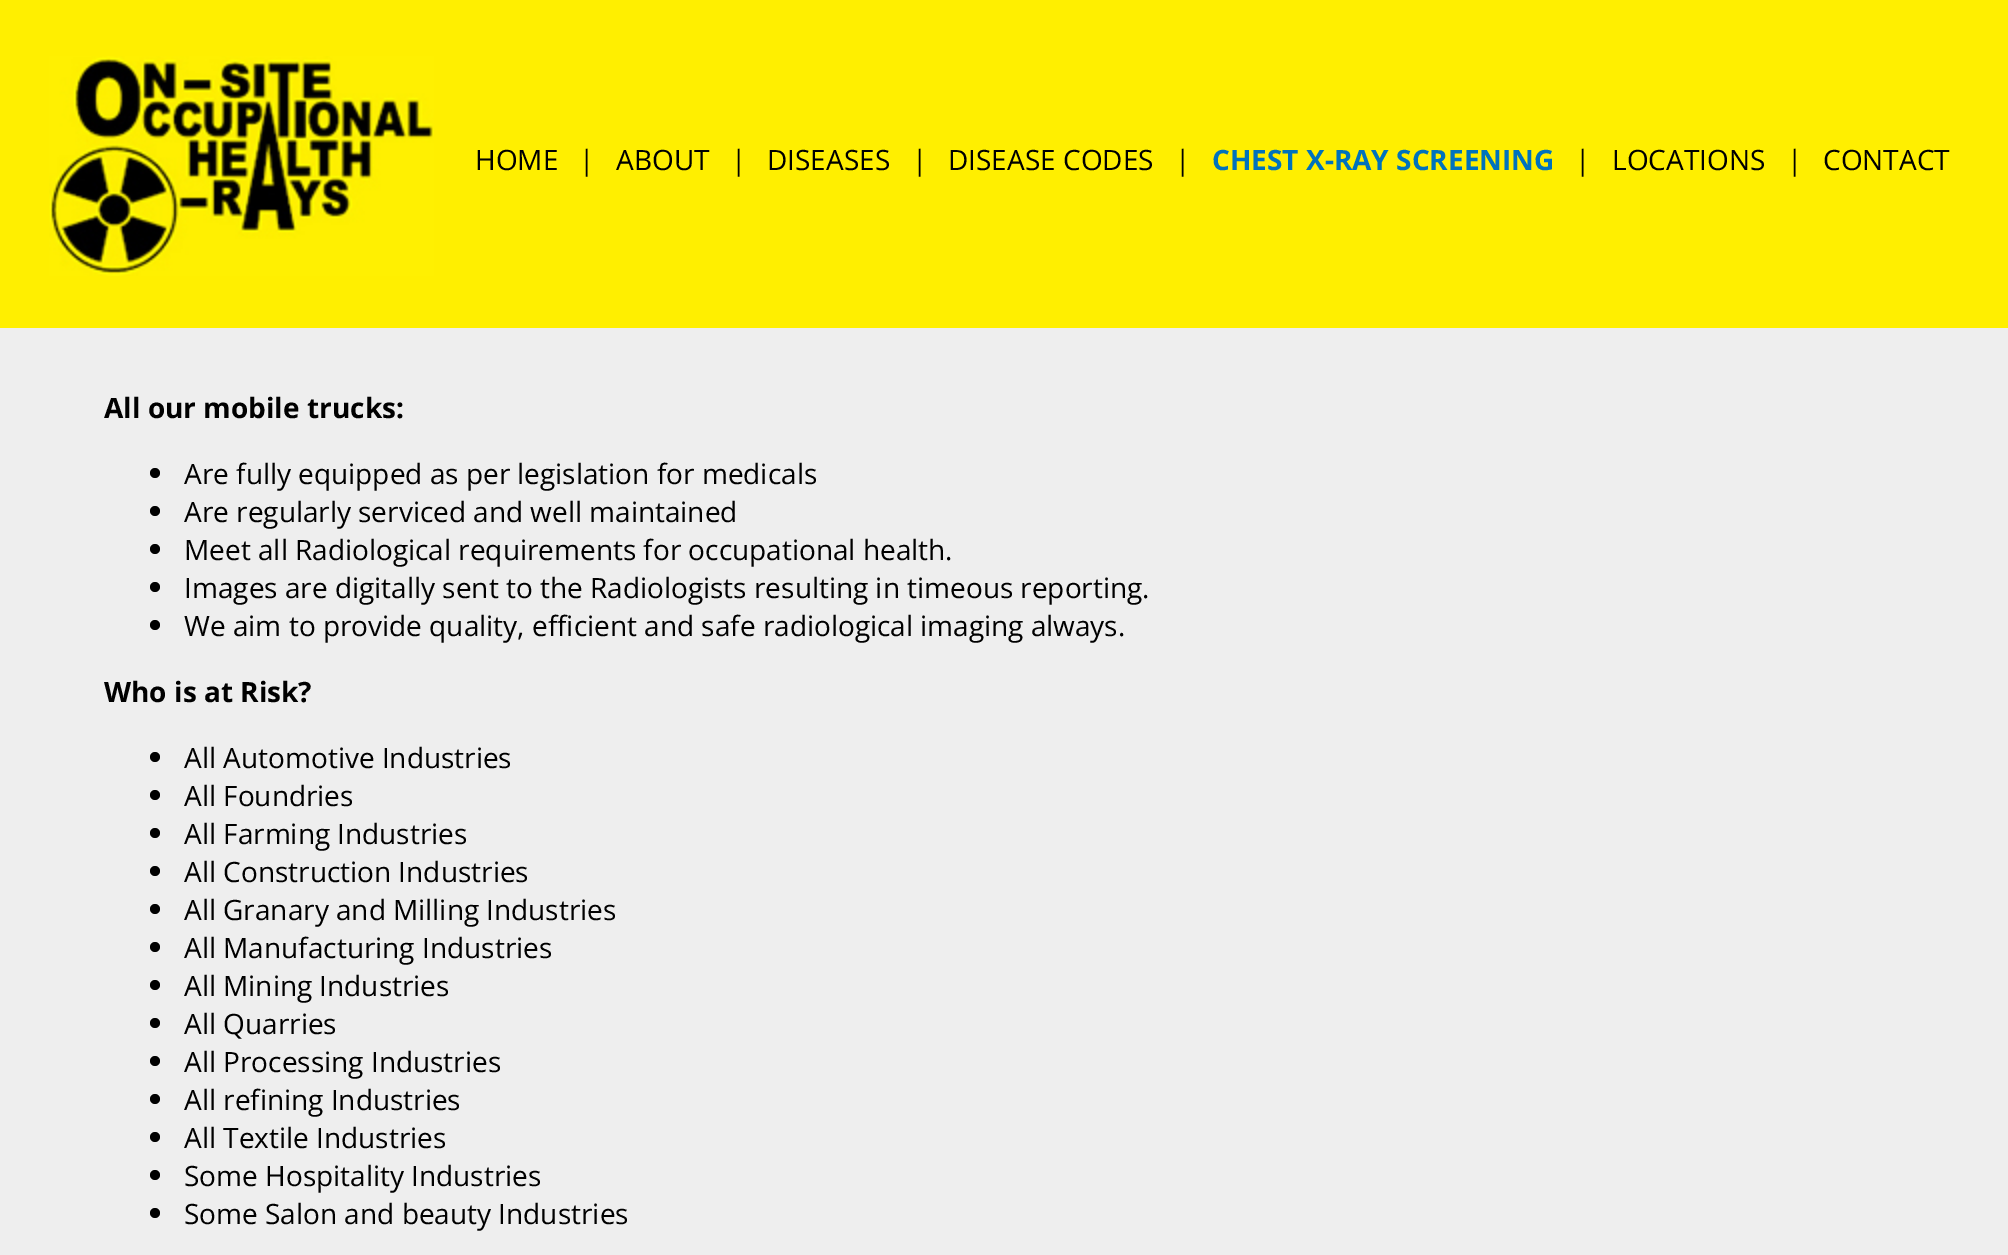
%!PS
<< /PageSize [2008 1255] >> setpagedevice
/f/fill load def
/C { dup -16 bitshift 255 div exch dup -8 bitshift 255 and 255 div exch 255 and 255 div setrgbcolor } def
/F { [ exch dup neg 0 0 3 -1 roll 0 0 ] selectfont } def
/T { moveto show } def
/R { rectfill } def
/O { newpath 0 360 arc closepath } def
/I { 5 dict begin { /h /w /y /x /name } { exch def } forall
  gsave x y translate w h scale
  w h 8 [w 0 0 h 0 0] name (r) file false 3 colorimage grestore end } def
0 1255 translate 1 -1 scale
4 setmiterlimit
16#EEEEEE C
0 0 2008 1255 R
16#FFEF00 C
0 0 2008 328 R
(1.rgb) 49 56 385 220 I
/OpenSans-Regular 28 F
16#000000 C
(HOME) 475 170 T
(|) 579 170 T
(ABOUT) 616 170 T
(|) 731 170 T
(DISEASES) 767 170 T
(|) 912 170 T
(DISEASE CODES) 948 170 T
(|) 1175 170 T
/OpenSans-Bold 28 F
16#0072BC C
(CHEST X-RAY SCREENING) 1212 170 T
/OpenSans-Regular 28 F
16#000000 C
(|) 1575 170 T
(LOCATIONS) 1612 170 T
(|) 1787 170 T
(CONTACT) 1823 170 T
/OpenSans-Bold 28 F
(All our mobile trucks:) 104 418 T
155 473 5 O f
/OpenSans-Regular 28 F
(Are fully equipped as per legislation for medicals) 184 484 T
155 511 5 O f
(Are regularly serviced and well maintained) 184 522 T
155 549 5 O f
(Meet all Radiological requirements for occupational health.) 184 560 T
155 587 5 O f
(Images are digitally sent to the Radiologists resulting in timeous reporting.) 184 598 T
155 625 5 O f
(We aim to provide quality, efficient and safe radiological imaging always.) 184 636 T
/OpenSans-Bold 28 F
(Who is at Risk?) 104 702 T
155 757 5 O f
/OpenSans-Regular 28 F
(All Automotive Industries) 184 768 T
155 795 5 O f
(All Foundries) 184 806 T
155 833 5 O f
(All Farming Industries) 184 844 T
155 871 5 O f
(All Construction Industries) 184 882 T
155 909 5 O f
(All Granary and Milling Industries) 184 920 T
155 947 5 O f
(All Manufacturing Industries) 184 958 T
155 985 5 O f
(All Mining Industries) 184 996 T
155 1023 5 O f
(All Quarries) 184 1034 T
155 1061 5 O f
(All Processing Industries) 184 1072 T
155 1099 5 O f
(All refining Industries) 184 1110 T
155 1137 5 O f
(All Textile Industries) 184 1148 T
155 1175 5 O f
(Some Hospitality Industries) 184 1186 T
155 1213 5 O f
(Some Salon and beauty Industries) 184 1224 T
showpage
